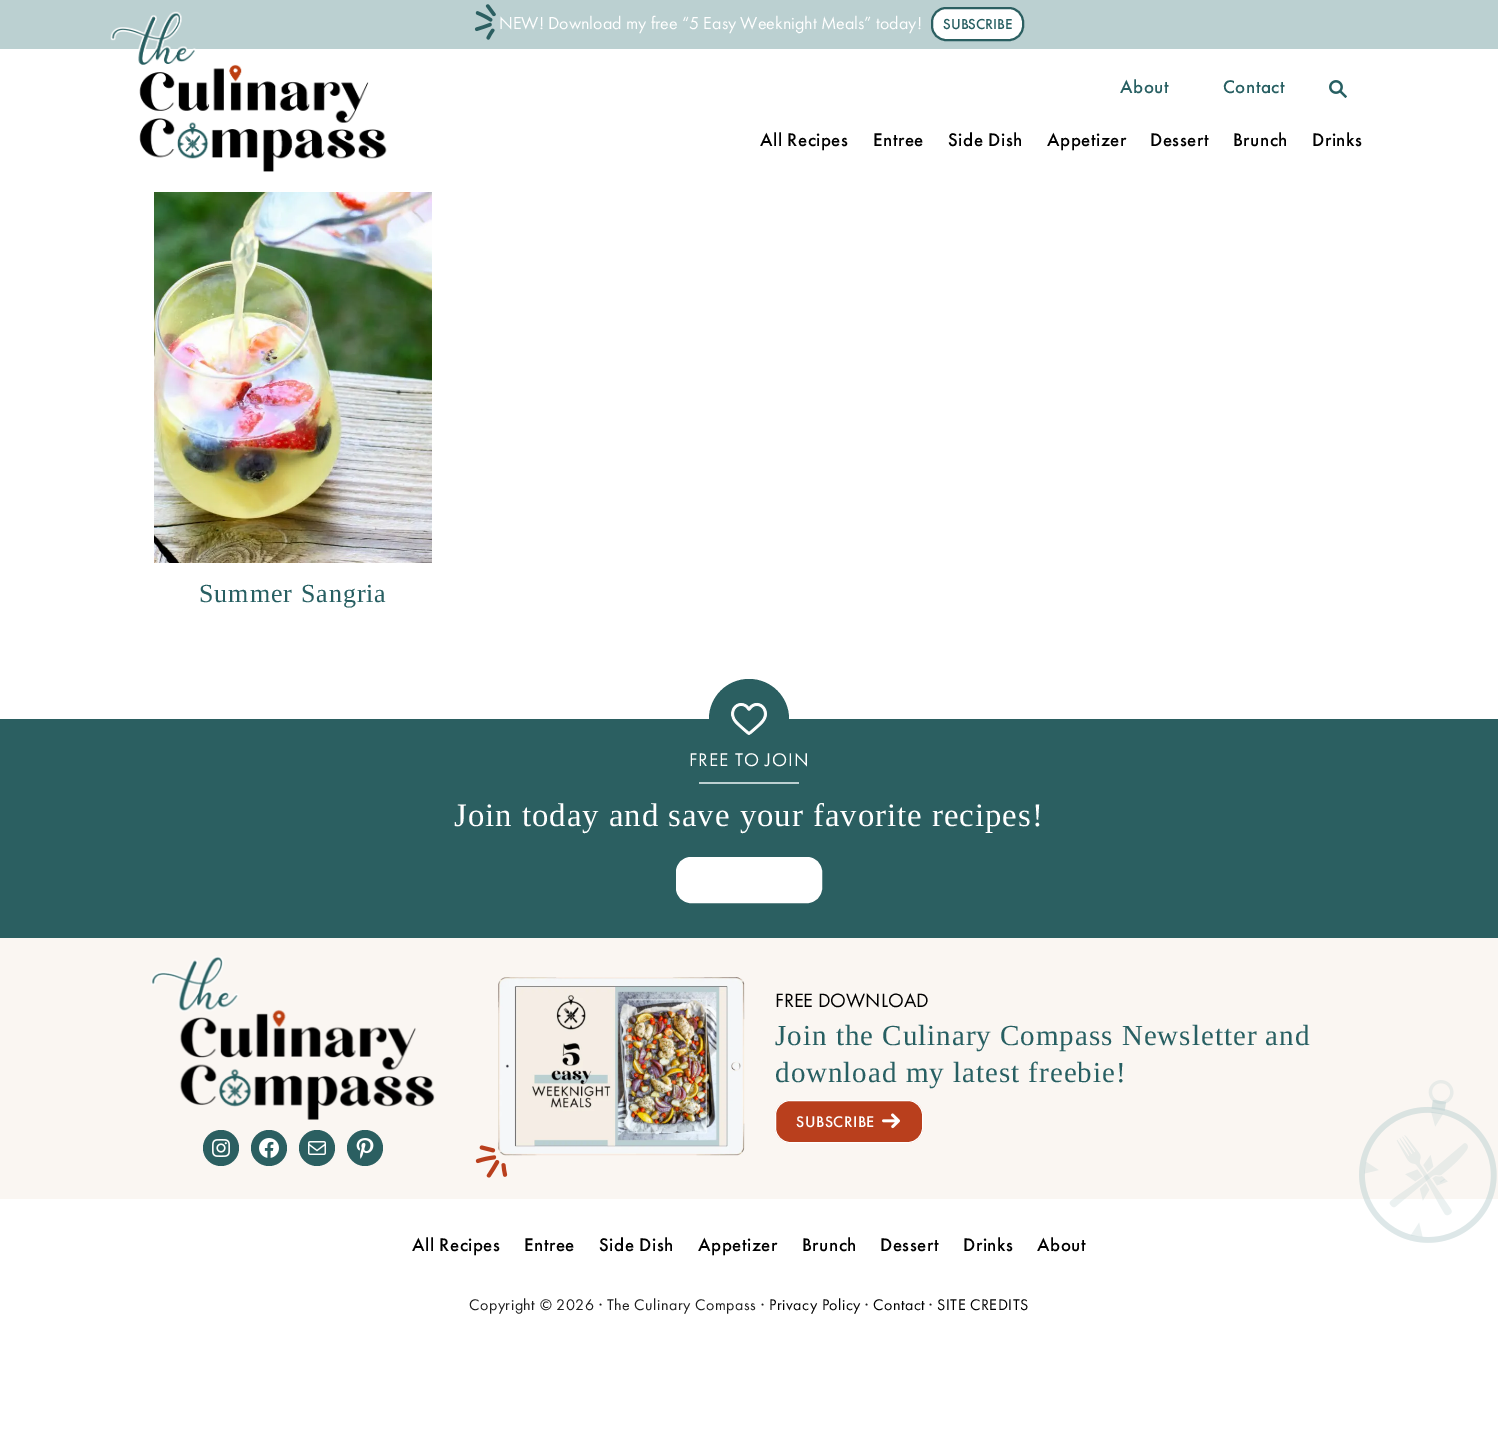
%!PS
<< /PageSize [1498 1456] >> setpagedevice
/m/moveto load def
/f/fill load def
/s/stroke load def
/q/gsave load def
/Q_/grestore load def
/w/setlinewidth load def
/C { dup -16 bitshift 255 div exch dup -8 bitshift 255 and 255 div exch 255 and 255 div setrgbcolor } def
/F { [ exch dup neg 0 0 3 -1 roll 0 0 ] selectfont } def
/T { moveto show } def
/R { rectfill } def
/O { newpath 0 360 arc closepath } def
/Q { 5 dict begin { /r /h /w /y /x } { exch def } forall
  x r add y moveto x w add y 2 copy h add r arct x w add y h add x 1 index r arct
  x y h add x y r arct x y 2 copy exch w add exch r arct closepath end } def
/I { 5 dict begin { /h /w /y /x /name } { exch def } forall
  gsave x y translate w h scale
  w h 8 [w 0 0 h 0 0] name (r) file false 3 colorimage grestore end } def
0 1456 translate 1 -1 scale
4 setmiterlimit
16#FFFFFF C
0 0 1498 1456 R
16#BBD0D1 C
0 0 1498 49 R
(1.rgb) 474 4 22 36 I
/FuturaPT-Regular 18 F
16#FFFFFF C
(NEW! Download my free “5 Easy Weeknight Meals” today!) 499 29 T
932 8 91 32 14 Q q f Q_
16#2B5F61 C
2 w
s
/FuturaPT-Medium 15 F
16#275F62 C
(SUBSCRIBE) 943 29 T
(2.rgb) 110 11 277 161 I
/FuturaPT-Medium 19 F
1120 93 m .5 0 (About) ashow
1223 93 m .5 0 (Contact) ashow
(3.rgb) 1329 80 18 18 I
16#000000 C
760 146 m .5 0 (All Recipes) ashow
873 146 m .5 0 (Entree) ashow
948 146 m .5 0 (Side Dish) ashow
1047 146 m .5 0 (Appetizer) ashow
1150 146 m .5 0 (Dessert) ashow
1233 146 m .5 0 (Brunch) ashow
1312 146 m .5 0 (Drinks) ashow
(4.rgb) 154 192 278 371 I
/LiberationSerif-Regular 26 F
16#275F62 C
199 602 m 1 0 (Summer Sangria) ashow
16#2B5F61 C
0 719 1498 219 R
749 719 40 O f
(5.rgb) 731 702 36 33 I
/FuturaPT-Regular 19 F
16#FFFFFF C
689 766 m 1 0 (FREE TO JOIN) ashow
16#BCD0D1 C
699 782 100 2 R
/LiberationSerif-Regular 32.75 F
16#FFFFFF C
454 826 m 1 0 (Join today and save your favorite recipes!) ashow
676.5 857.5 145 45 14.5 Q q f Q_
1 w
s
16#FAF6F2 C
0 938 1498 261 R
(6.rgb) 151 956 284 164 I
16#2B5F61 C
221 1148 18 O f
(7.rgb) 212 1139 18 18 I
269 1148 18 O f
(8.rgb) 259 1138 20 20 I
317 1148 18 O f
(9.rgb) 308 1141 18 14 I
365 1148 18 O f
(10.rgb) 356 1138 18 21 I
(11.rgb) 498 977 247 179 I
(12.rgb) 475 1145 33 33 I
/FuturaPT-Regular 20 F
16#000000 C
(FREE DOWNLOAD) 775 1007 T
/LiberationSerif-Regular 29 F
16#275F62 C
775 1045 m 1 0 (Join the Culinary Compass Newsletter and) ashow
775 1082 m 1 0 (download my latest freebie!) ashow
16#B93F1D C
775.5 1100.5 147 42 14.5 Q q f Q_
16#FFFFFF C
s
/FuturaPT-Medium 16 F
796 1127 m .5 0 (SUBSCRIBE) ashow
(13.rgb) 882 1113 18 16 I
(14.rgb) 1359 1080 138 163 I
/FuturaPT-Medium 19 F
16#000000 C
412 1251 m .5 0 (All Recipes) ashow
524 1251 m .5 0 (Entree) ashow
599 1251 m .5 0 (Side Dish) ashow
698 1251 m .5 0 (Appetizer) ashow
802 1251 m .5 0 (Brunch) ashow
880 1251 m .5 0 (Dessert) ashow
963 1251 m .5 0 (Drinks) ashow
1037 1251 m .5 0 (About) ashow
/FuturaPT-Regular 16 F
16#1E1E1E C
469 1310 m .5 0 (Copyright © 2026 · The Culinary Compass ·) ashow
16#000000 C
769 1310 m .5 0 (Privacy Policy) ashow
16#1E1E1E C
865 1310 m .5 0 (·) ashow
16#000000 C
873 1310 m .5 0 (Contact) ashow
16#1E1E1E C
929 1310 m .5 0 (·) ashow
16#000000 C
937 1310 m .5 0 (SITE CREDITS) ashow
showpage
